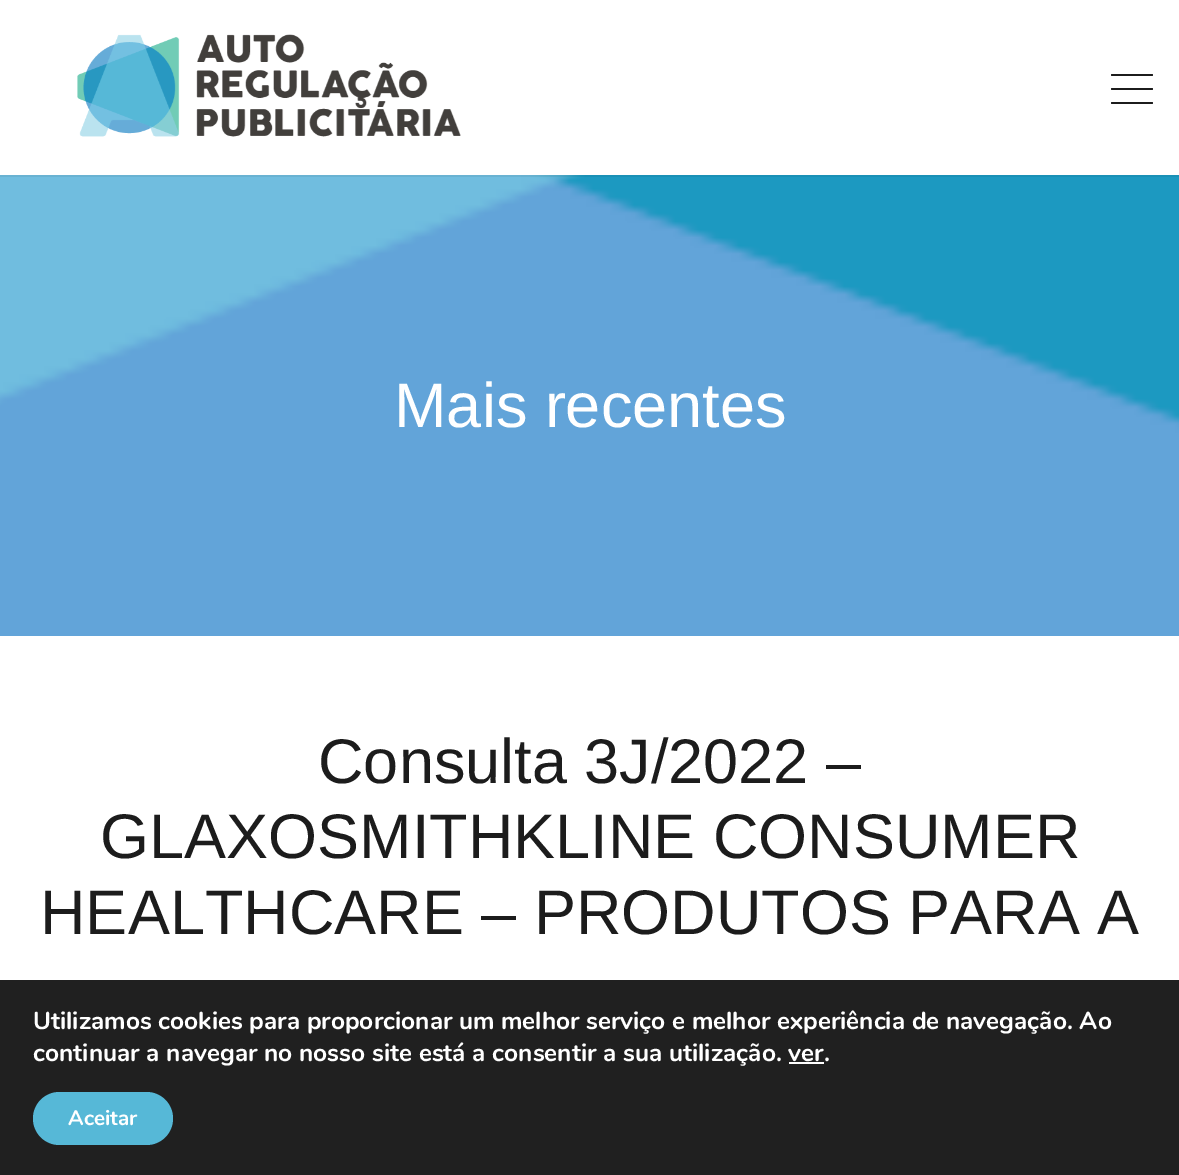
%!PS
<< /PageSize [1179 1175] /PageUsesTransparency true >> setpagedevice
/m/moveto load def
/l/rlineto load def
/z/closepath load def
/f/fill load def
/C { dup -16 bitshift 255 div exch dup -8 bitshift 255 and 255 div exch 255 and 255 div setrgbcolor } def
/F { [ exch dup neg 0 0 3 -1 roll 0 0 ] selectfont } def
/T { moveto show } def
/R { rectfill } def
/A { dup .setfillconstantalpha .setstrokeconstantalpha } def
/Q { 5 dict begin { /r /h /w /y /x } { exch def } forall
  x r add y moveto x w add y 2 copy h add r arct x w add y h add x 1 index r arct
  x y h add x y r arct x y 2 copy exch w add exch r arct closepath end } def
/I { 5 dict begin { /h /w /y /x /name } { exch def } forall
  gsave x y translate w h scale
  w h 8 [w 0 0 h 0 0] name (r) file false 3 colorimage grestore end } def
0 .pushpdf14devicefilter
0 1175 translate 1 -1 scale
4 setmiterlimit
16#FFFFFF C
0 0 1179 1175 R
(2.rgb) 0 175 1179 461 I
0.06 A
16#000000 C
0 175 m 0 2 l 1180 0 l 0 -175 l 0 173 l z f
1 A
(1.rgb) 77 34 384 103 I
16#1C1C1C C
1111 74 42 2 1 Q f
1111 88 42 2 1 Q f
1111 102 42 2 1 Q f
/LiberationSans-Regular 63 F
16#FFFFFF C
(Mais recentes) 394 427 T
16#1C1C1C C
(Consulta 3J/2022 –) 318 783 T
(GLAXOSMITHKLINE CONSUMER) 100 858 T
(HEALTHCARE – PRODUTOS PARA A) 40 934 T
16#202020 C
0 980 1179 195 R
/Nunito-Bold 24.5 F
16#FFFFFF C
(Utilizamos cookies para proporcionar um melhor serviço e melhor experiência de navegação. Ao) 33 1029 T
(continuar a navegar no nosso site está a consentir a sua utilização. ver.) 33 1061 T
789 1062 35 2 R
16#56B8D7 C
33 1092 140 53 26.5 Q f
/Nunito-Bold 21 F
16#FFFFFF C
(Aceitar) 68 1125 T
.poppdf14devicefilter showpage
